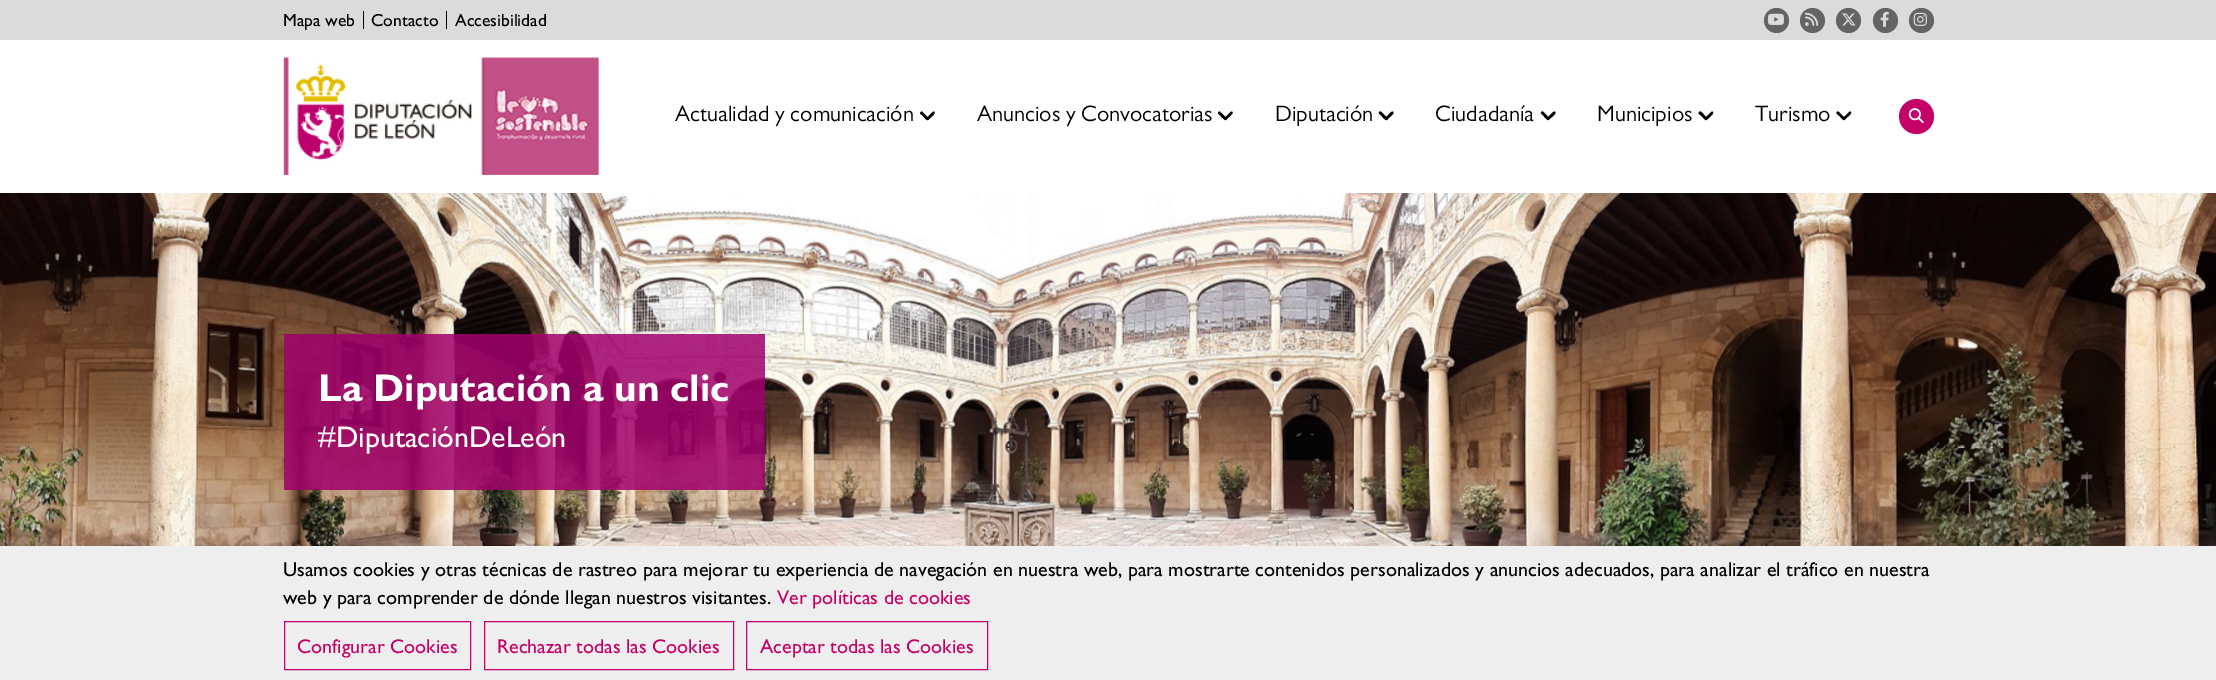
%!PS
<< /PageSize [2216 680] /PageUsesTransparency true >> setpagedevice
/m/moveto load def
/l/rlineto load def
/c/rcurveto load def
/z/closepath load def
/f/fill load def
/C { dup -16 bitshift 255 div exch dup -8 bitshift 255 and 255 div exch 255 and 255 div setrgbcolor } def
/F { [ exch dup neg 0 0 3 -1 roll 0 0 ] selectfont } def
/T { moveto show } def
/R { rectfill } def
/A { dup .setfillconstantalpha .setstrokeconstantalpha } def
/O { newpath 0 360 arc closepath } def
/I { 5 dict begin { /h /w /y /x /name } { exch def } forall
  gsave x y translate w h scale
  w h 8 [w 0 0 h 0 0] name (r) file false 3 colorimage grestore end } def
0 .pushpdf14devicefilter
0 680 translate 1 -1 scale
4 setmiterlimit
16#FFFFFF C
0 0 2216 680 R
16#DBDBDB C
0 0 2216 40 R
16#000000 C
363 11 1 18 R
/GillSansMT-Regular 17.5 F
(Mapa web) 283 26 T
446 11 1 18 R
(Contacto) 371 26 T
(Accesibilidad) 455 26 T
16#646464 C
1776.5 20.5 12.5 O f
(1.rgb) 1767 13 17 12 I
1812.5 20.5 12.5 O f
(2.rgb) 1805 12 14 14 I
1848.5 20.5 12.5 O f
(3.rgb) 1842 13 14 13 I
1885.5 20.5 12.5 O f
(4.rgb) 1880 11 9 16 I
1921.5 20.5 12.5 O f
(5.rgb) 1913 12 14 14 I
(6.rgb) 283 57 316 118 I
/GillSansMT-Light 22.5 F
16#000000 C
(Actualidad y comunicación) 675 121 T
922 111.5 m 6 6 l .5 1.5 l -.5 3 -5 -2 -5 -2.5 c -3.5 -3 l 0 -1 1.5 -2.5 2 -2 c z f
926.5 118 m 6 -6 l 1 -.5 l 3.5 1 -2 5 -2 5.5 c -3.5 3 l -1 .5 -2.5 -1 -1.5 -2 c z f
(Anuncios y Convocatorias) 977 121 T
1220 111.5 m 6 6 l .5 1.5 l -.5 3 -5 -2 -5.5 -2.5 c -3 -3 l -.5 -1 1.5 -2.5 2 -2 c z f
1224.5 118 m 6 -6 l 1 -.5 l 3.5 1 -2 5 -2.5 5.5 c -3 3 l -1 .5 -2.5 -1 -1.5 -2 c z f
(Diputación) 1275 121 T
1381 111.5 m 6 6 l .5 1.5 l -1 3 -5 -2 -5.5 -2.5 c -3 -3 l -.5 -1 1 -2.5 2 -2 c z f
1385.5 118 m 5.5 -6 l 1.5 -.5 l 3 1 -2 5 -2.5 5.5 c -3 3 l -1 .5 -2.5 -1 -1.5 -2 c z f
(Ciudadanía) 1435 121 T
1543 111.5 m 6 6 l 0 1.5 l -.5 3 -4.5 -2 -5 -2.5 c -3 -3 l -.5 -1 1 -2.5 2 -2 c z f
1547 118 m 6 -6 l 1.5 -.5 l 3 1 -2 5 -2.5 5.5 c -3.5 3 l -.5 .5 -2 -1 -1.5 -2 c z f
(Municipios) 1597 121 T
1701 111.5 m 5.5 6 l .5 1.5 l -.5 3 -4.5 -2 -5 -2.5 c -3.5 -3 l 0 -1 1.5 -2.5 2.5 -2 c z f
1705 118 m 6 -6 l 1 -.5 l 3.5 1 -2 5 -2 5.5 c -3.5 3 l -1 .5 -2.5 -1 -1.5 -2 c z f
(Turismo) 1755 121 T
1838.5 111.5 m 6 6 l .5 1.5 l -.5 3 -5 -2 -5 -2.5 c -3.5 -3 l -.5 -1 1.5 -2.5 2 -2 c z f
1843 118 m 6 -6 l 1 -.5 l 3.5 1 -2 5 -2.5 5.5 c -3 3 l -1 .5 -2.5 -1 -1.5 -2 c z f
16#C50068 C
1916.5 116.5 17.5 O f
(7.rgb) 1908 108 16 16 I
(8.rgb) 0 193 2216 353 I
0.85 A
16#A0006B C
284 334 481 156 R
/GillSansMT-Bold 38.75 F
1 A
16#FFFFFF C
(La Diputación a un clic) 318 401 T
/GillSansMT-Regular 30 F
(#DiputaciónDeLeón) 318 447 T
16#EEEEEE C
0 546 2216 134 R
/GillSansMT-Regular 20 F
16#000000 C
(Usamos cookies y otras técnicas de rastreo para mejorar tu experiencia de navegación en nuestra web, para mostrarte contenidos personalizados y anuncios adecuados, para analizar el tráfico en nuestra) 283 576 T
(web y para comprender de dónde llegan nuestros visitantes.) 283 604 T
16#C50068 C
(Ver políticas de cookies) 777 604 T
284.5 621.5 186 48 rectstroke
(Configurar Cookies) 297 653 T
484.5 621.5 249 48 rectstroke
(Rechazar todas las Cookies) 497 653 T
746.5 621.5 241 48 rectstroke
(Aceptar todas las Cookies) 760 653 T
.poppdf14devicefilter showpage
